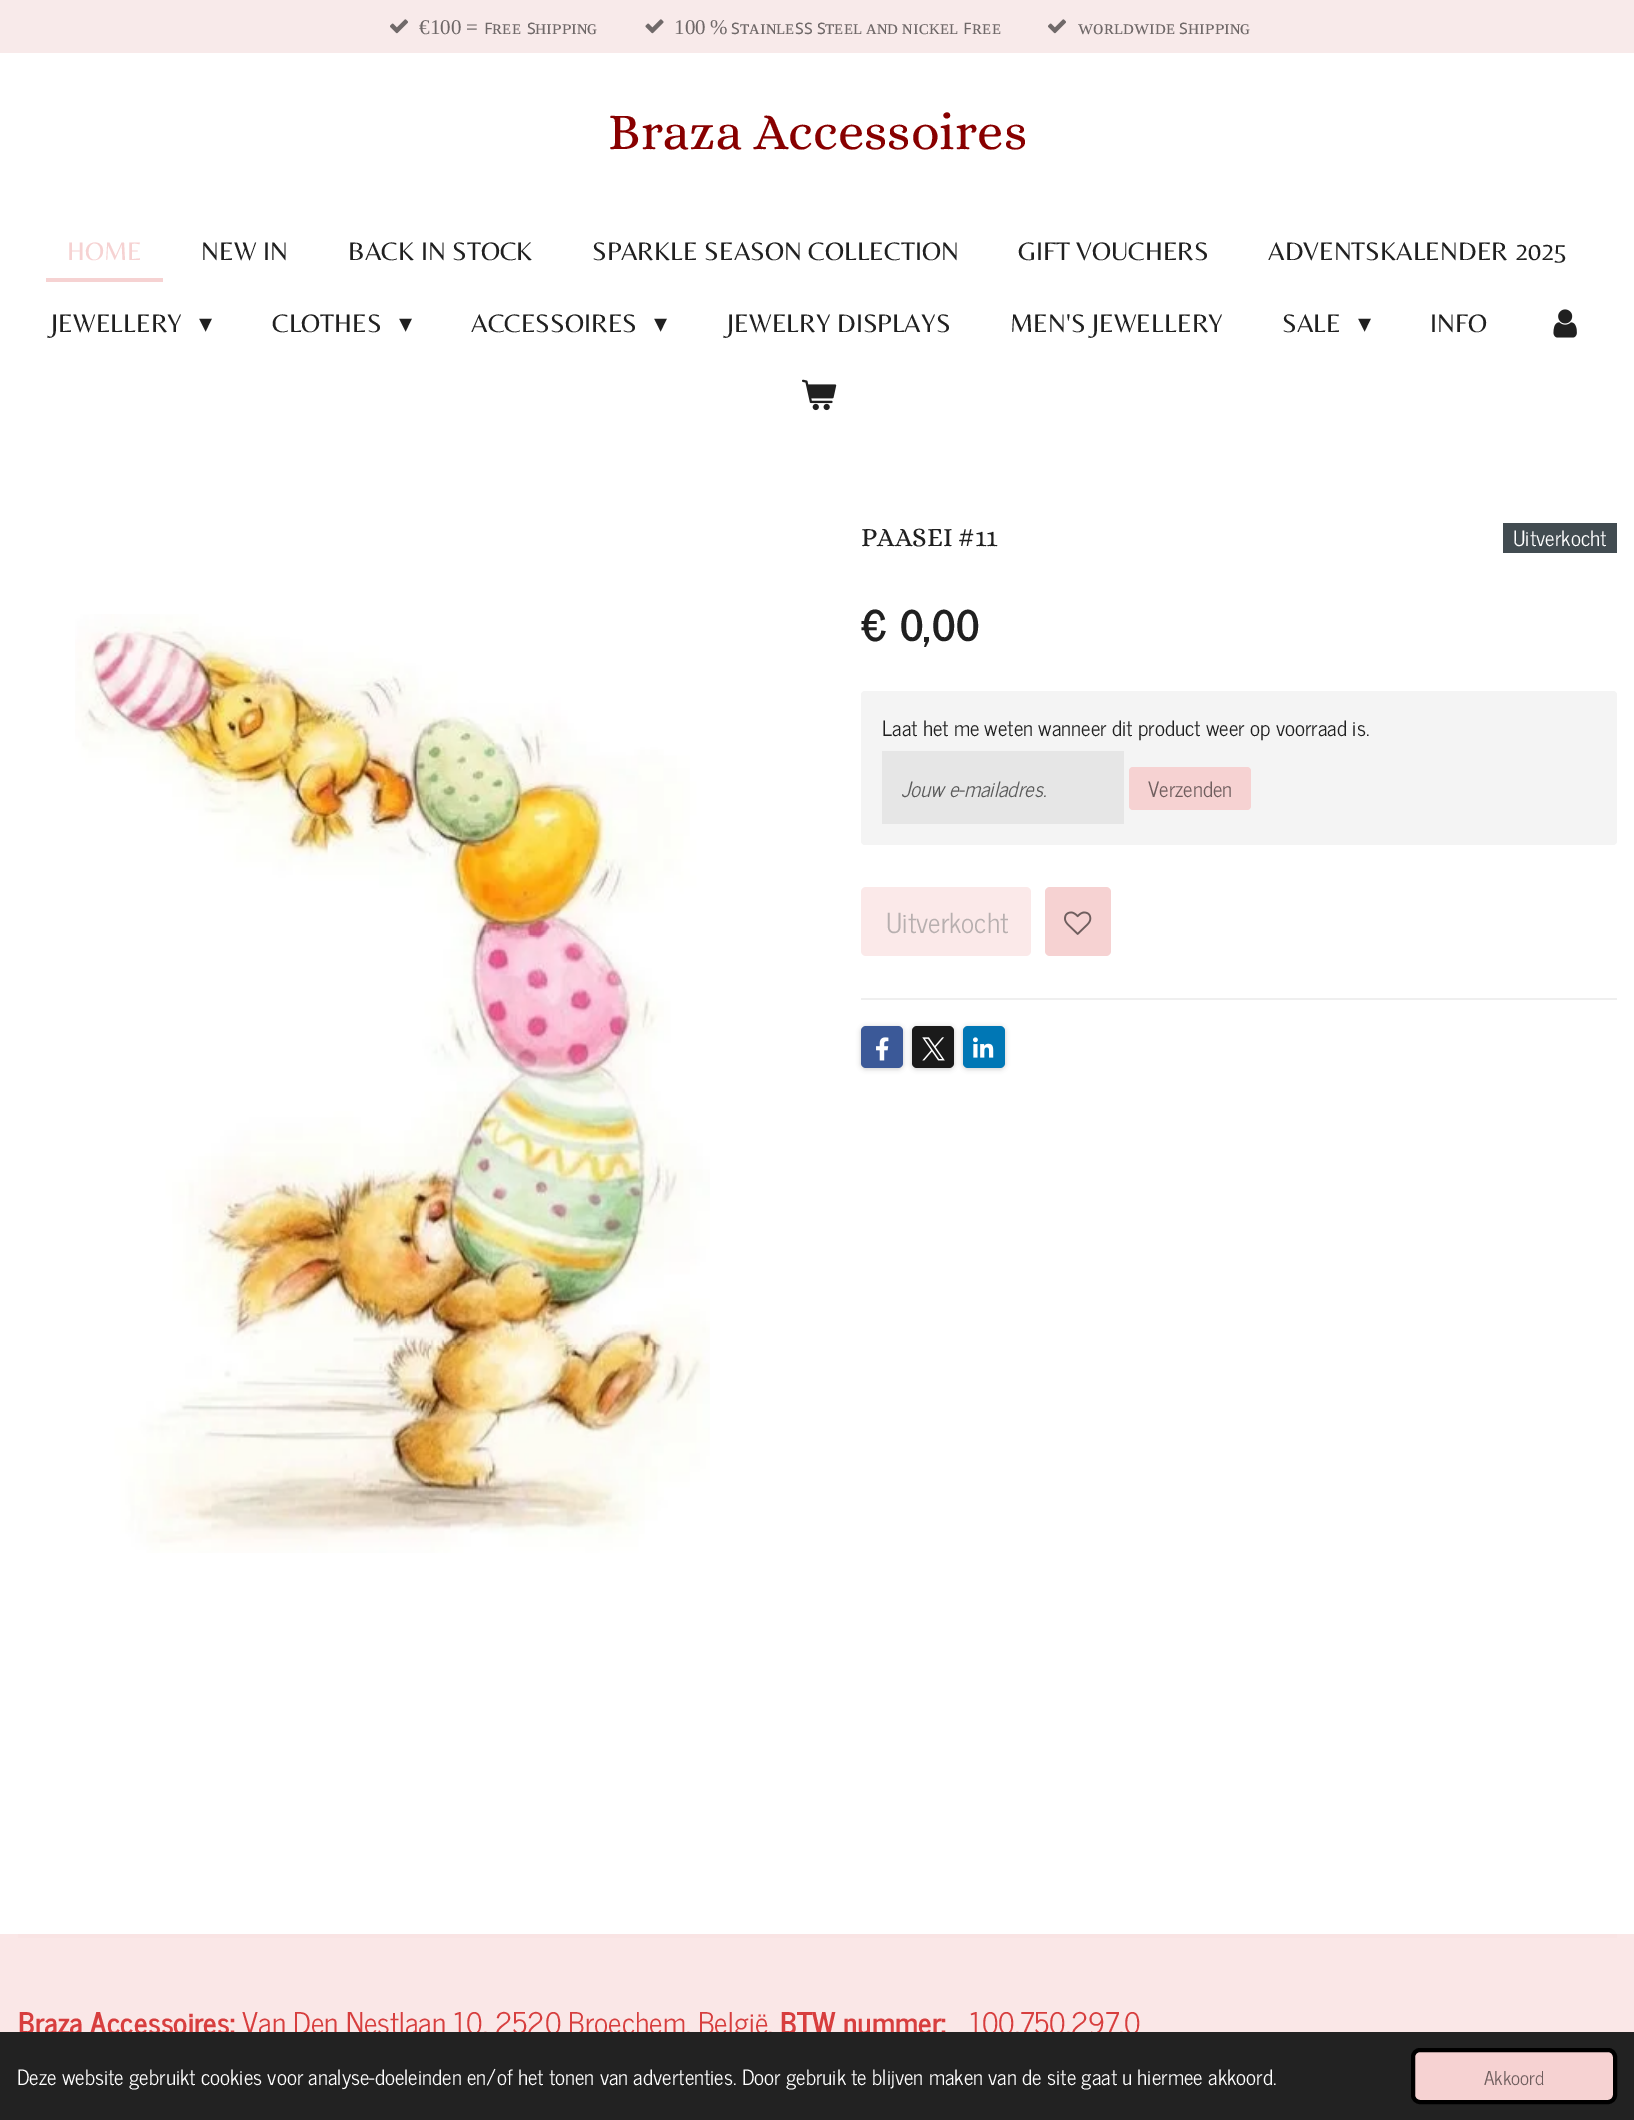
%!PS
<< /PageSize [1634 2120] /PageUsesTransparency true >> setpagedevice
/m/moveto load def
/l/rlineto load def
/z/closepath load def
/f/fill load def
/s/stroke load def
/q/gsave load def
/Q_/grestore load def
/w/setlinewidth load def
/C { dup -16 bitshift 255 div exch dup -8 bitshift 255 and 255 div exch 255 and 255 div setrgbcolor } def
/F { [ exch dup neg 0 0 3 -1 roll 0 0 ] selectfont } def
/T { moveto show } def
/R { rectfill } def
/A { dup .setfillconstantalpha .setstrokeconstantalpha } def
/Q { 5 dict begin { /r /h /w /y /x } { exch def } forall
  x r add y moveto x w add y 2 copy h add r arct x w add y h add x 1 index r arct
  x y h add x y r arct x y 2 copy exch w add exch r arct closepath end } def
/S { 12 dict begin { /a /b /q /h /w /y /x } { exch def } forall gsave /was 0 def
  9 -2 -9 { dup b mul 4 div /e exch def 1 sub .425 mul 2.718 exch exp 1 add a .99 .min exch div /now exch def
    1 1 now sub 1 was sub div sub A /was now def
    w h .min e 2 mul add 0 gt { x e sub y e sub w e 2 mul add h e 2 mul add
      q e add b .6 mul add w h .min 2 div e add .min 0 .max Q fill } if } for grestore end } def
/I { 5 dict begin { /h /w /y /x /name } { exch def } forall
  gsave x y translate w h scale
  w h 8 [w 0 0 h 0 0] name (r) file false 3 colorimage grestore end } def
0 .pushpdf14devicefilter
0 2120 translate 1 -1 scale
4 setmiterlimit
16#FFFFFF C
0 0 1634 2120 R
16#F8EAEA C
0 0 1634 53 R
(1.rgb) 390 19 18 15 I
/LiberationSerif-Regular 21 F
16#706969 C
(€100 =) 419 34 T
/NotoSans-Regular 21 F
(ꜰ) 484 34 T
/LiberationSerif-Regular 21 F
(ʀᴇᴇ) 492 34 T
/NotoSans-Regular 21 F
(ꜱ) 527 34 T
/LiberationSerif-Regular 21 F
(ʜɪᴘᴘɪɴɢ) 535 34 T
(2.rgb) 645 19 19 15 I
674 34 m -1 0 32 (100 %) widthshow
/NotoSans-Regular 21 F
(ꜱ) 731 34 T
/LiberationSerif-Regular 21 F
(ᴛᴀɪɴʟᴇ) 740 34 T
/NotoSans-Regular 21 F
(ꜱꜱ) 795 34 T
(ꜱ) 817 34 T
/LiberationSerif-Regular 21 F
825 34 m -1 0 32 (ᴛᴇᴇʟ ᴀɴᴅ ɴɪᴄᴋᴇʟ) widthshow
/NotoSans-Regular 21 F
(ꜰ) 963 34 T
/LiberationSerif-Regular 21 F
(ʀᴇᴇ) 972 34 T
(1.rgb) 1048 19 18 15 I
(ᴡᴏʀʟᴅᴡɪᴅᴇ) 1078 34 T
/NotoSans-Regular 21 F
(ꜱ) 1179 34 T
/LiberationSerif-Regular 21 F
(ʜɪᴘᴘɪɴɢ) 1188 34 T
/Alice-Regular 52.5 F
16#880000 C
(Braza Accessoires) 608 149 T
16#F6D2D2 C
46 278 m 0 4 l 117 0 l 0 -54 l 0 50 l z f
/Belleza-Regular 26.25 F
(HOME) 67 260 T
16#202020 C
(NEW IN) 201 260 T
(BACK IN STOCK) 348 260 T
(SPARKLE SEASON COLLECTION) 592 260 T
(GIFT VOUCHERS) 1018 260 T
(ADVENTSKALENDER 2025) 1268 260 T
(JEWELLERY) 51 332 T
/DejaVuSans-Regular 26.25 F
(▾) 199 332 T
/Belleza-Regular 26.25 F
(CLOTHES) 272 332 T
/DejaVuSans-Regular 26.25 F
(▾) 399 332 T
/Belleza-Regular 26.25 F
(ACCESSOIRES) 471 332 T
/DejaVuSans-Regular 26.25 F
(▾) 654 332 T
/Belleza-Regular 26.25 F
(JEWELRY DISPLAYS) 727 332 T
(MEN'S JEWELLERY) 1010 332 T
(SALE) 1282 332 T
/DejaVuSans-Regular 26.25 F
(▾) 1358 332 T
/Belleza-Regular 26.25 F
(INFO) 1430 332 T
(3.rgb) 1553 309 24 29 I
(4.rgb) 802 379 35 32 I
/Alice-Regular 26.75 F
(PAASEI #11) 861 546 T
16#424C51 C
1503 523 114 30 R
/NewsCycle-Regular 21 F
16#FFFFFF C
(Uitverkocht) 1513 546 T
(5.rgb) 75 614 635 939 I
/NewsCycle-Bold 42 F
16#202020 C
(€ 0,00) 861 641 T
16#F4F4F4 C
861 691 756 154 4 Q f
/NewsCycle-Regular 21 F
16#202020 C
(Laat het me weten wanneer dit product weer op voorraad is.) 882 736 T
16#E6E6E6 C
882 751 242 73 R
/NewsCycle-Italic 21 F
16#5B5B5B C
(Jouw e-mailadres.) 901 797 T
16#F6D2D2 C
1129 767 122 43 4 Q f
/NewsCycle-Regular 21 F
16#6F5E5E C
(Verzenden) 1148 797 T
16#FBE9E9 C
861 887 170 69 5 Q f
/NewsCycle-Regular 27.5 F
16#B7AFAF C
(Uitverkocht) 886 933 T
16#F6D2D2 C
1045 887 66 69 5 Q f
(6.rgb) 1064 911 28 24 I
16#EFEFEF C
861 998 756 2 R
16#000000 C
861 1027 42 42 5 2.5 .2 S
16#3B5998 C
861 1026 42 42 5 Q f
(7.rgb) 876 1037 13 24 I
16#000000 C
912 1027 42 42 5 2.5 .2 S
16#1A1A1A C
912 1026 42 42 5 Q f
(8.rgb) 922 1037 23 24 I
16#000000 C
963 1027 42 42 5 2.5 .2 S
16#0077B5 C
963 1026 42 42 5 Q f
(9.rgb) 973 1037 21 21 I
16#FAE7E7 C
0 1934 1634 98 R
16#F9E4E4 C
18 1934 1599 4 R
/NewsCycle-Bold 29.75 F
16#D73E3E C
(Braza Accessoires:) 18 2034 T
/NewsCycle-Regular 29.75 F
(Van Den Nestlaan 10, 2520 Broechem, België.) 242 2034 T
/NewsCycle-Bold 29.75 F
(BTW nummer:) 780 2034 T
/NewsCycle-Regular 29.75 F
(100.750.297.0) 969 2034 T
16#222222 C
0 2032 1634 88 R
/NewsCycle-Regular 21 F
16#FFFFFF C
(Deze website gebruikt cookies voor analyse-doeleinden en/of het tonen van advertenties. Door gebruik te blijven maken van de site gaat u hiermee akkoord.) 17 2085 T
16#F6D2D2 C
1413 2050 202 52 7 Q q f Q_
16#000000 C
4 w
s
/NewsCycle-Regular 19 F
16#6F5E5E C
(Akkoord) 1484 2085 T
.poppdf14devicefilter showpage
